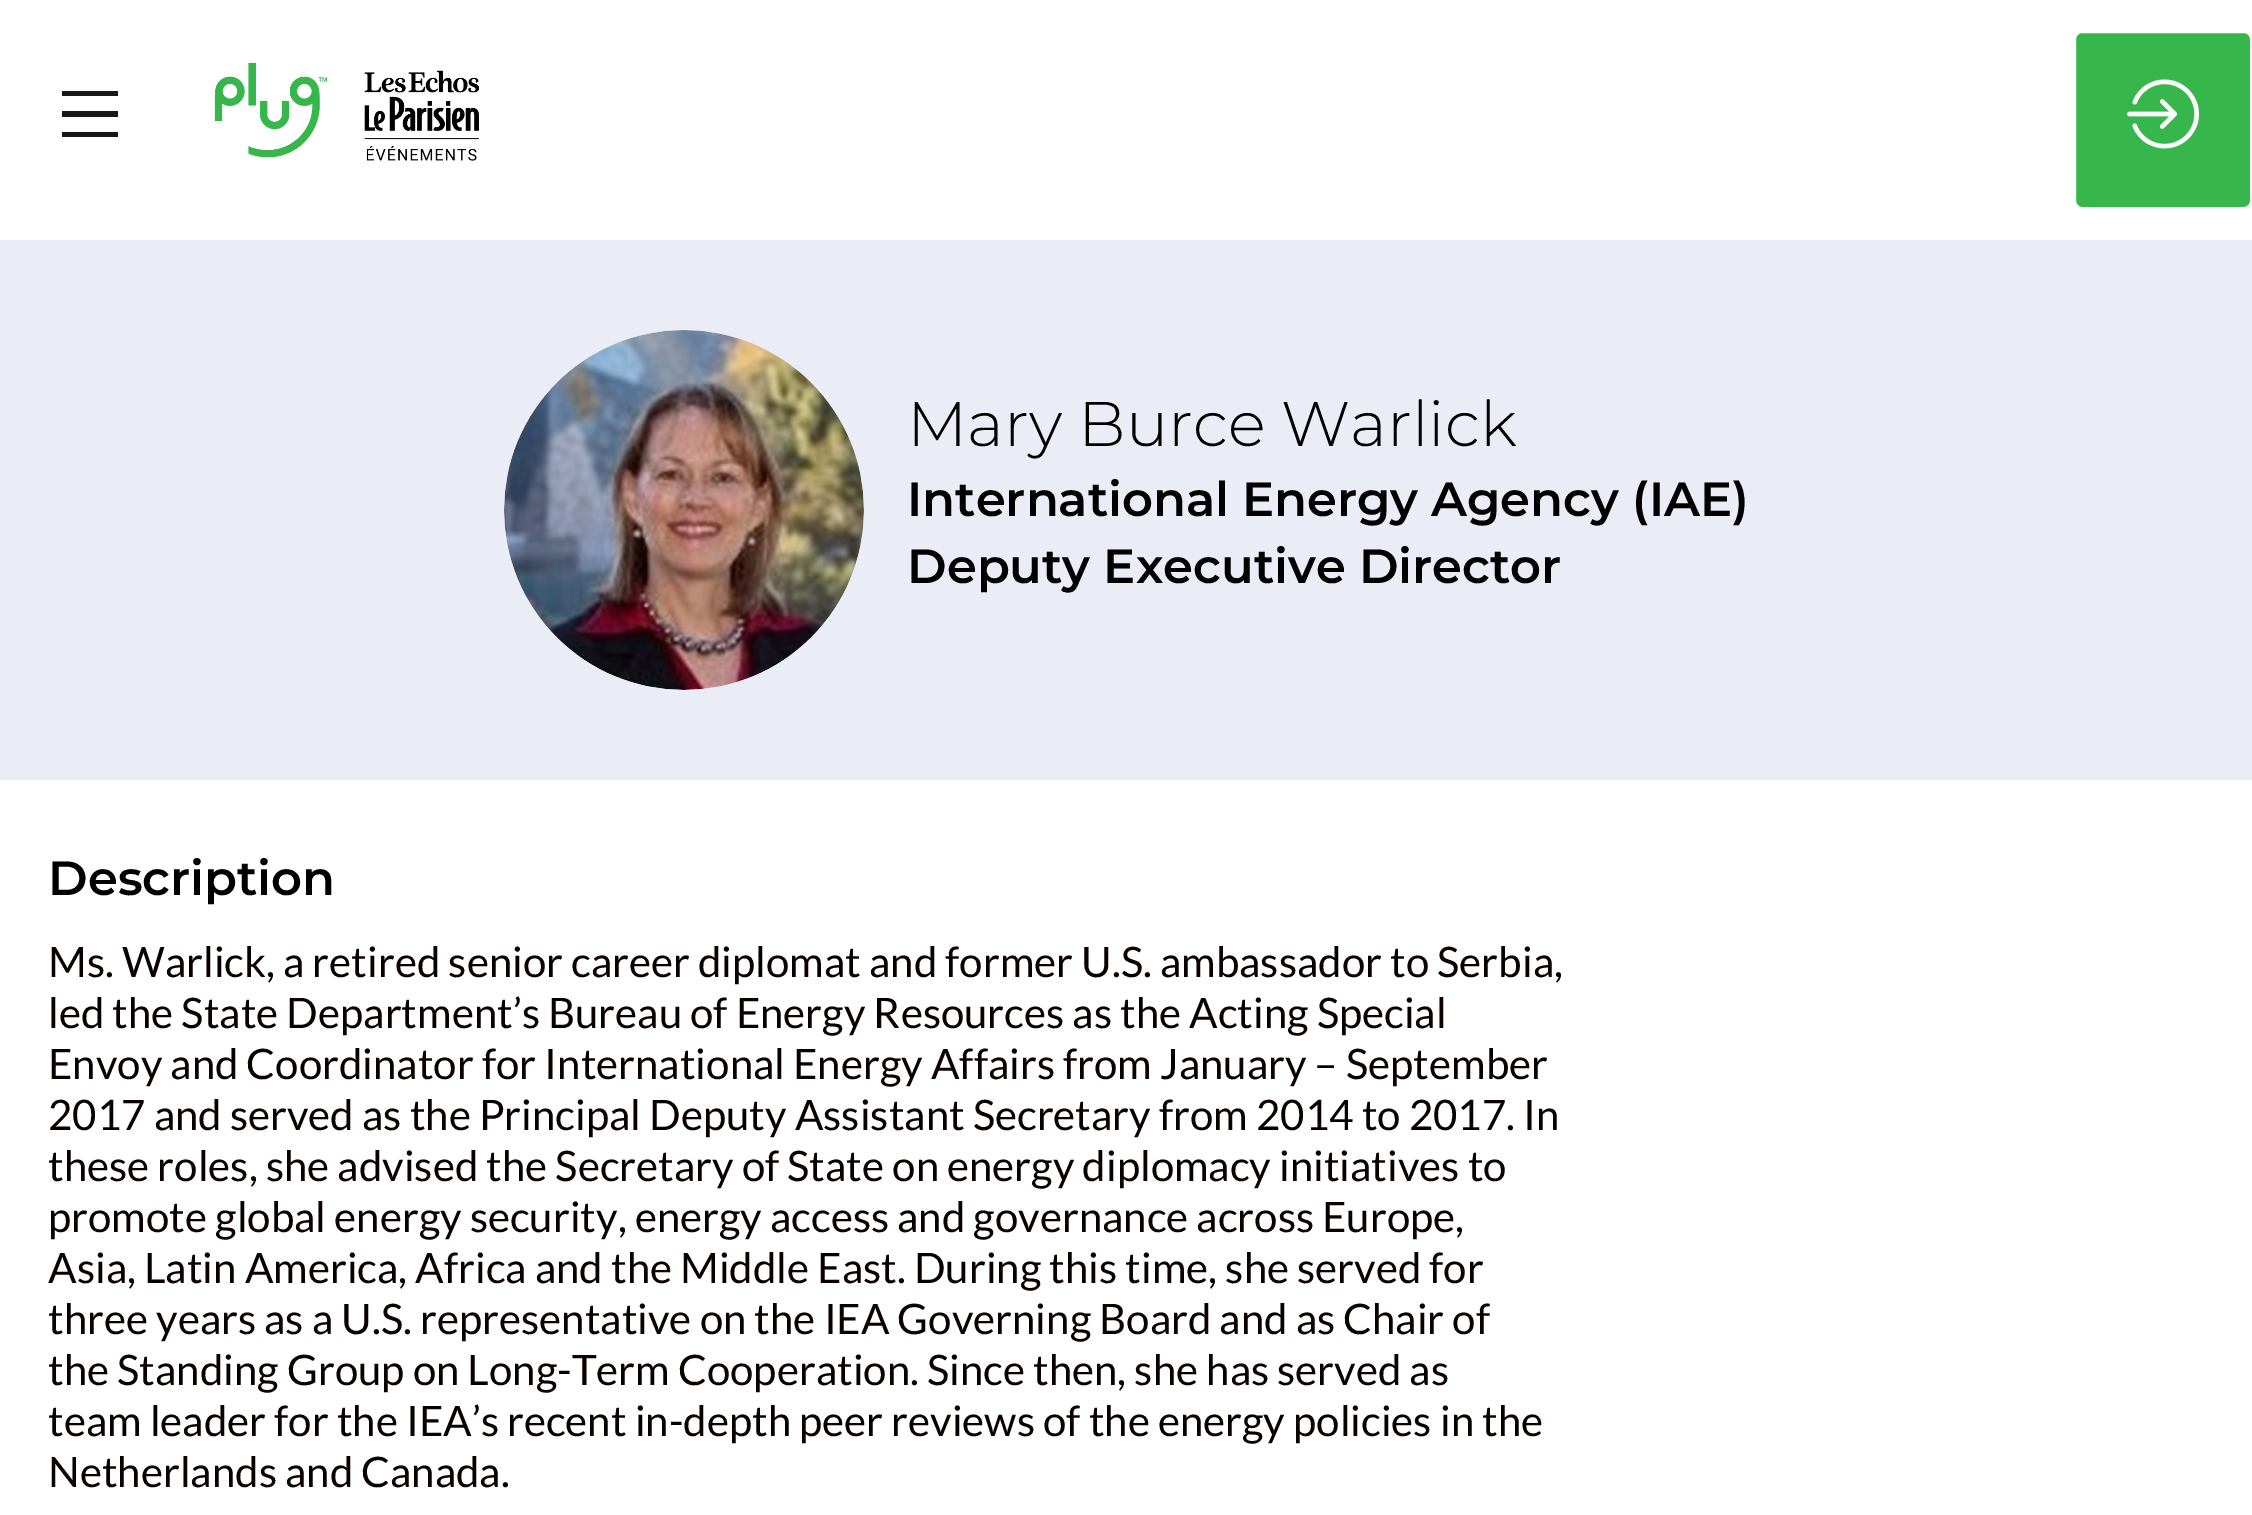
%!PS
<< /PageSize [2252 1515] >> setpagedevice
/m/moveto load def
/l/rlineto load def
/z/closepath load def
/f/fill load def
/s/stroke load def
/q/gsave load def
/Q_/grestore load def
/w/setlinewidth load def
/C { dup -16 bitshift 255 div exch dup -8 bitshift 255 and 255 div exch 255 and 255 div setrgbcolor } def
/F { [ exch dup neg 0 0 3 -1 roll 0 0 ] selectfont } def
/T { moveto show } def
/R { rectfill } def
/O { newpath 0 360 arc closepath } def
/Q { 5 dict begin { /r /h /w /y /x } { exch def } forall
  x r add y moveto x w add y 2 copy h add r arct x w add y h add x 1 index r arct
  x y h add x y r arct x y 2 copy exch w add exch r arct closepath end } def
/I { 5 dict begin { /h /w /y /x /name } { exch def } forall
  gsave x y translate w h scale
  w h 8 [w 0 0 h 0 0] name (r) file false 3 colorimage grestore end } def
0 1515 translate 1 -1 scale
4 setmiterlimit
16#FFFFFF C
0 0 2252 1515 R
16#181818 C
62 91 m 56 0 l 0 5 l -56 0 l z 62 111 m 56 0 l 0 6 l -56 0 l z 62 132 m 56 0 l 0 5 l -56 0 l z f
(1.rgb) 214 62 265 99 I
16#36B64B C
2074.5 31.5 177 177 7.5 Q q f Q_
16#FFFFFF C
3 w
s
(2.rgb) 2127 79 72 70 I
16#EAEDF5 C
0 240 2252 540 R
16#DADCE2 C
684 510 180 O f
(3.rgb) 504 330 360 360 I
/Montserrat-Light 63 F
16#000000 C
(Mary Burce Warlick) 907 446 T
/Montserrat-SemiBold 48 F
(International Energy Agency \(IAE\)) 907 516 T
(Deputy Executive Director) 907 583 T
(Description) 48 895 T
/Lato-Regular 42 F
16#0A0000 C
(Ms. Warlick, a retired senior career diplomat and former U.S. ambassador to Serbia,) 48 977 T
(led the State Department’s Bureau of Energy Resources as the Acting Special) 48 1028 T
(Envoy and Coordinator for International Energy Affairs from January – September) 48 1079 T
(2017 and served as the Principal Deputy Assistant Secretary from 2014 to 2017. In) 48 1130 T
(these roles, she advised the Secretary of State on energy diplomacy initiatives to) 48 1181 T
(promote global energy security, energy access and governance across Europe,) 48 1232 T
(Asia, Latin America, Africa and the Middle East. During this time, she served for) 48 1283 T
(three years as a U.S. representative on the IEA Governing Board and as Chair of) 48 1334 T
(the Standing Group on Long-Term Cooperation. Since then, she has served as) 48 1385 T
(team leader for the IEA’s recent in-depth peer reviews of the energy policies in the) 48 1436 T
(Netherlands and Canada.) 48 1487 T
showpage
